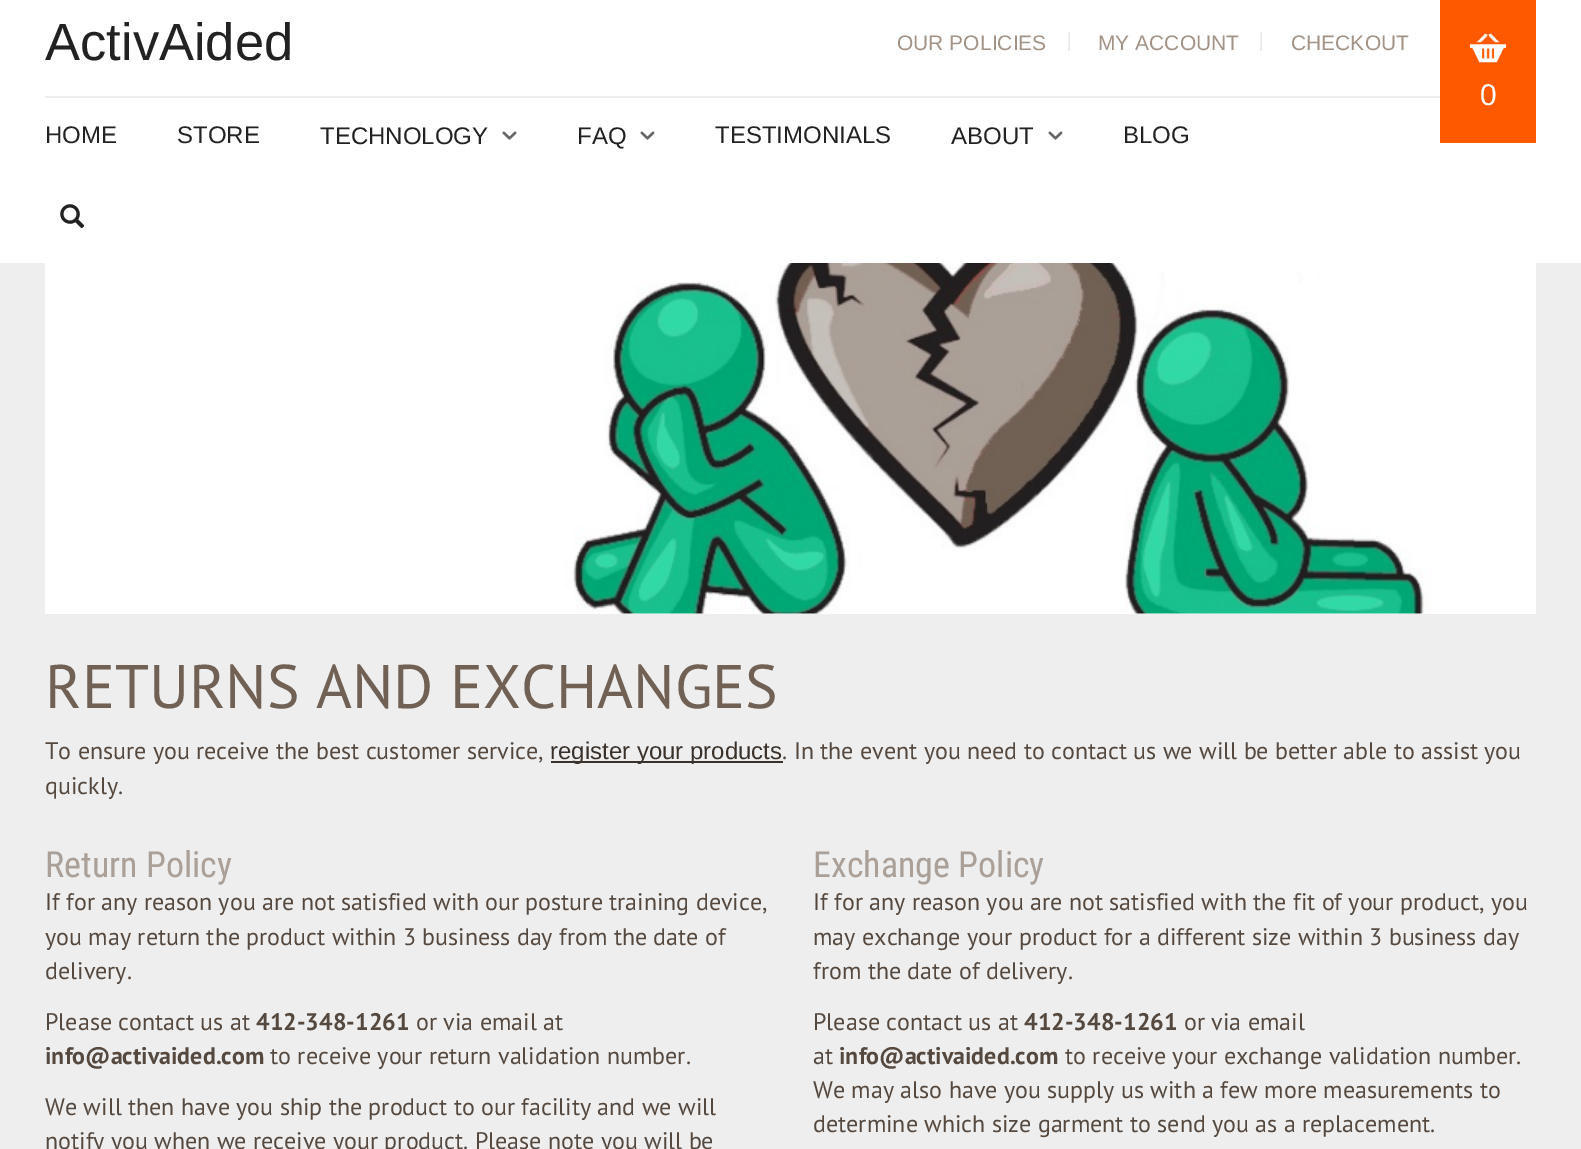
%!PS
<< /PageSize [1581 1149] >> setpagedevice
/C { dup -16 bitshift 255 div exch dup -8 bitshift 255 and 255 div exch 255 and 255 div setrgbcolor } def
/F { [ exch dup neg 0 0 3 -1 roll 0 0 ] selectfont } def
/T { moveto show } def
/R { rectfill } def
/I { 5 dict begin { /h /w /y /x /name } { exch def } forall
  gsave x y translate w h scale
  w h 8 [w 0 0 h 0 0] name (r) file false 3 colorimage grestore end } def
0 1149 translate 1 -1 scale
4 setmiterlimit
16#EEEEEE C
0 0 1581 1149 R
16#FFFFFF C
0 0 1581 263 R
/LiberationSans-Regular 52.5 F
16#222222 C
(ActivAided) 45 60 T
/LiberationSans-Regular 21 F
16#A39386 C
(OUR POLICIES) 897 50 T
16#EBEBEB C
1068 32 2 19 R
16#A39386 C
(MY ACCOUNT) 1098 50 T
16#EBEBEB C
1260 32 2 19 R
16#A39386 C
(CHECKOUT) 1291 50 T
16#FF5900 C
1440 0 96 143 R
(1.rgb) 1470 33 36 30 I
/LiberationSans-Regular 30 F
16#FFFFFF C
(0) 1480 105 T
16#EEEEEE C
45 96 1395 2 R
/LiberationSans-Regular 24 F
16#222222 C
(HOME) 45 143 T
(STORE) 177 143 T
(TECHNOLOGY) 320 144 T
(2.rgb) 502 131 15 9 I
(FAQ) 577 144 T
(2.rgb) 640 131 15 9 I
(TESTIMONIALS) 715 143 T
(ABOUT) 951 144 T
(2.rgb) 1048 131 15 9 I
(BLOG) 1123 143 T
(3.rgb) 60 204 25 25 I
16#FFFFFF C
45 613 1491 1 R
(4.rgb) 45 263 1491 351 I
/PTSans-Regular 61.5 F
16#716154 C
(RETURNS AND EXCHANGES) 45 708 T
/PTSans-Regular 24 F
16#55493F C
(To ensure you receive the best customer service,) 45 759 T
16#39312A C
551 761 232 2 R
/LiberationSans-Regular 24 F
(register your products) 550 759 T
/PTSans-Regular 24 F
16#55493F C
(. In the event you need to contact us we will be better able to assist you) 782 759 T
(quickly.) 45 794 T
/RobotoCondensed-Regular 36 F
16#AAA098 C
(Return Policy) 45 877 T
/PTSans-Regular 24 F
16#55493F C
(If for any reason you are not satisfied with our posture training device,) 45 910 T
(you may return the product within 3 business day from the date of) 45 945 T
(delivery.) 45 979 T
(Please contact us at) 45 1030 T
/PTSans-Bold 24 F
(412-348-1261) 256 1030 T
/PTSans-Regular 24 F
(or via email at) 416 1030 T
/PTSans-Bold 24 F
(info@activaided.com) 45 1064 T
/PTSans-Regular 24 F
(to receive your return validation number.) 270 1064 T
(We will then have you ship the product to our facility and we will) 45 1115 T
(notify you when we receive your product. Please note you will be) 45 1149 T
/RobotoCondensed-Regular 36 F
16#AAA098 C
(Exchange Policy) 813 877 T
/PTSans-Regular 24 F
16#55493F C
(If for any reason you are not satisfied with the fit of your product, you) 813 910 T
(may exchange your product for a different size within 3 business day) 813 945 T
(from the date of delivery.) 813 979 T
(Please contact us at) 813 1030 T
/PTSans-Bold 24 F
(412-348-1261) 1024 1030 T
/PTSans-Regular 24 F
(or via email) 1184 1030 T
(at) 813 1064 T
/PTSans-Bold 24 F
(info@activaided.com) 839 1064 T
/PTSans-Regular 24 F
(to receive your exchange validation number.) 1065 1064 T
(We may also have you supply us with a few more measurements to) 813 1098 T
(determine which size garment to send you as a replacement.) 813 1132 T
showpage
